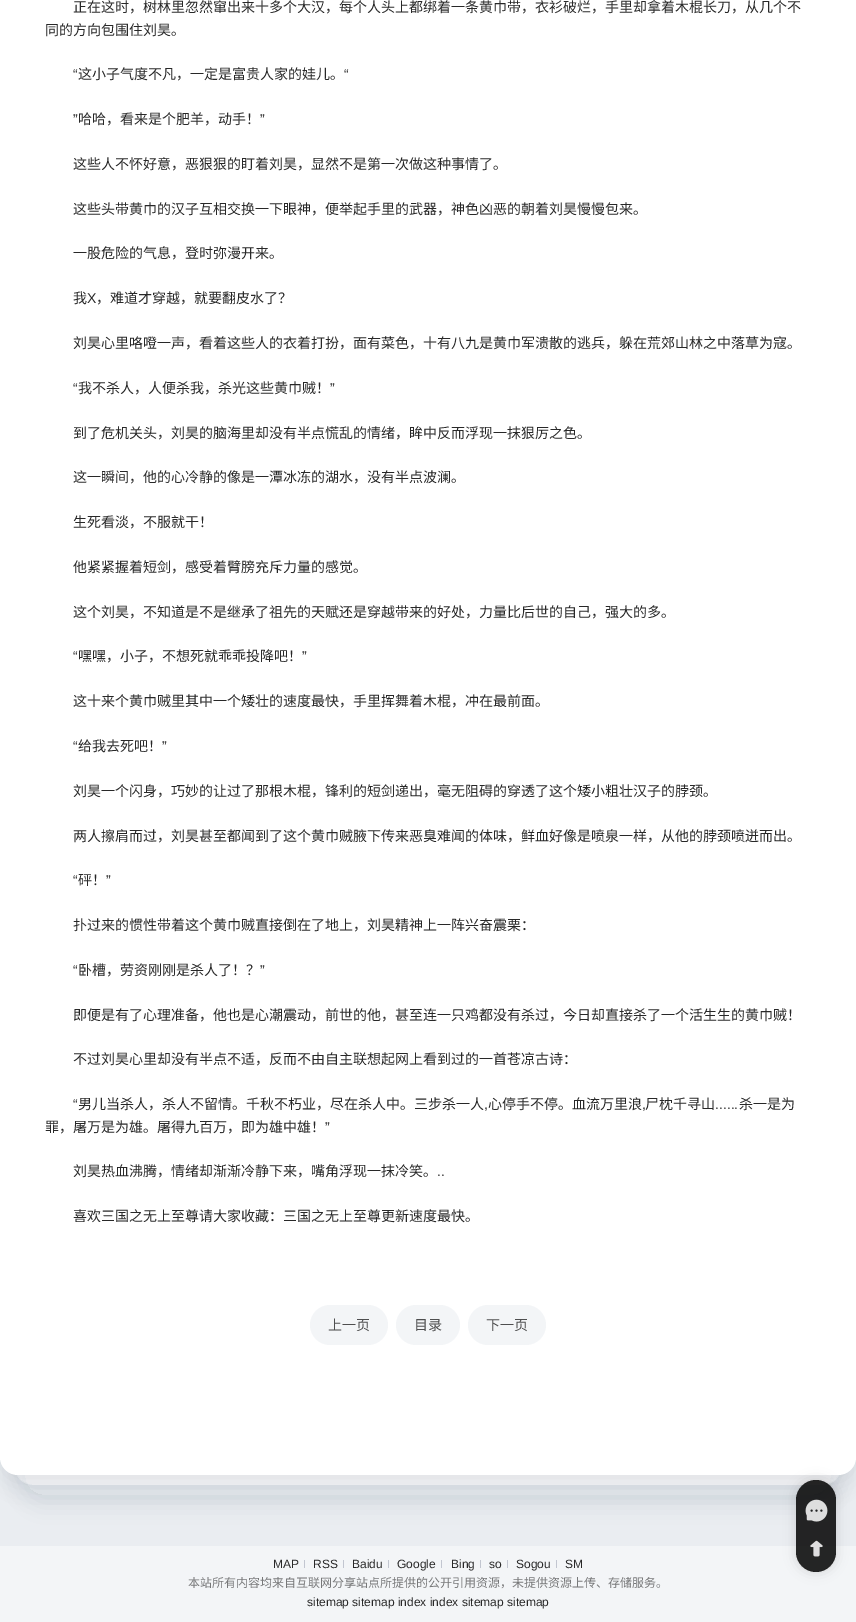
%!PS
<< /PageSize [856 1622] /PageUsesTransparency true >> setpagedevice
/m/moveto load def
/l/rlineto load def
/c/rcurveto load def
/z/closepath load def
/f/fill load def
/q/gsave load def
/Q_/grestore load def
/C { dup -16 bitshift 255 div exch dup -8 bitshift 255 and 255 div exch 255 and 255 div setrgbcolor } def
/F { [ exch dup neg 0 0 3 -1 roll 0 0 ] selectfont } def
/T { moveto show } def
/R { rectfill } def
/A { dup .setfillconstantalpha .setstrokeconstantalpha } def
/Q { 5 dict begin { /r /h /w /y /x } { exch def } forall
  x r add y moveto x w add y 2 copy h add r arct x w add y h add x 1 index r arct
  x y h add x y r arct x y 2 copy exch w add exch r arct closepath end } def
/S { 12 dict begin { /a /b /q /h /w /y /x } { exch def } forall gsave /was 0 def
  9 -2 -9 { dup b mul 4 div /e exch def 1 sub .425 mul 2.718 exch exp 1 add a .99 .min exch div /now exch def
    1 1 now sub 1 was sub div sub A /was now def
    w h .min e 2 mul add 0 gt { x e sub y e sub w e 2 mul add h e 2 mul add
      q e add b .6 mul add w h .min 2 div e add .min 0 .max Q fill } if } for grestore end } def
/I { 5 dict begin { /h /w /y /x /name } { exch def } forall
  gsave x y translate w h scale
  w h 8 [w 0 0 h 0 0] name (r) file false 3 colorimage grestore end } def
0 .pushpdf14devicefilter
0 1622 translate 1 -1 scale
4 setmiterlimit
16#EAEDF1 C
0 0 856 1622 R
q
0 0 m 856 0 l 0 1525 l -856 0 l z 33 -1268 m 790 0 l 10 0 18 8 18 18 c 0 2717 l 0 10 -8 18 -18 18 c -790 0 l -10 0 -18 -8 -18 -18 c 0 -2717 l 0 -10 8 -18 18 -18 c z eoclip newpath
16#959DA5 C
15 -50 826 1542 18 10.5 .22 S
Q_
q
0 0 m 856 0 l 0 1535 l -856 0 l z 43 -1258 m 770 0 l 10 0 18 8 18 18 c 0 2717 l 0 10 -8 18 -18 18 c -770 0 l -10 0 -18 -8 -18 -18 c 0 -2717 l 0 -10 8 -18 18 -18 c z eoclip newpath
16#959DA5 C
25 -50 806 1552 18 10.5 .22 S
Q_
0.5 A
16#FFFFFF C
15 -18 826 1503 18 Q f
1 A
16#959DA5 C
0 -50 856 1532 18 10.5 .22 S
16#FFFFFF C
0 -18 m 856 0 l 0 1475 l 0 10 -8 18 -18 18 c -820 0 l -10 0 -18 -8 -18 -18 c z f
/NotoSansCJKSC-Regular 14 F
16#282828 C
(正在这时，树林里忽然窜出来十多个大汉，每个人头上都绑着一条黄巾带，衣衫破烂，手里却拿着木棍长刀，从几个不) 73 12 T
(同的方向包围住刘昊。) 45 35 T
/LiberationSans-Regular 14 F
(“) 73 79 T
/NotoSansCJKSC-Regular 14 F
(这小子气度不凡，一定是富贵人家的娃儿。) 78 79 T
/LiberationSans-Regular 14 F
(“) 344 79 T
(”) 73 124 T
/NotoSansCJKSC-Regular 14 F
(哈哈，看来是个肥羊，动手！) 78 124 T
/LiberationSans-Regular 14 F
(”) 260 124 T
/NotoSansCJKSC-Regular 14 F
(这些人不怀好意，恶狠狠的盯着刘昊，显然不是第一次做这种事情了。) 73 169 T
(这些头带黄巾的汉子互相交换一下眼神，便举起手里的武器，神色凶恶的朝着刘昊慢慢包来。) 73 214 T
(一股危险的气息，登时弥漫开来。) 73 258 T
(我) 73 303 T
/LiberationSans-Regular 14 F
(X) 87 303 T
/NotoSansCJKSC-Regular 14 F
(，难道才穿越，就要翻皮水了？) 96 303 T
(刘昊心里咯噔一声，看着这些人的衣着打扮，面有菜色，十有八九是黄巾军溃散的逃兵，躲在荒郊山林之中落草为寇。) 73 348 T
/LiberationSans-Regular 14 F
(“) 73 393 T
/NotoSansCJKSC-Regular 14 F
(我不杀人，人便杀我，杀光这些黄巾贼！) 78 393 T
/LiberationSans-Regular 14 F
(”) 330 393 T
/NotoSansCJKSC-Regular 14 F
(到了危机关头，刘昊的脑海里却没有半点慌乱的情绪，眸中反而浮现一抹狠厉之色。) 73 438 T
(这一瞬间，他的心冷静的像是一潭冰冻的湖水，没有半点波澜。) 73 482 T
(生死看淡，不服就干！) 73 527 T
(他紧紧握着短剑，感受着臂膀充斥力量的感觉。) 73 572 T
(这个刘昊，不知道是不是继承了祖先的天赋还是穿越带来的好处，力量比后世的自己，强大的多。) 73 617 T
/LiberationSans-Regular 14 F
(“) 73 661 T
/NotoSansCJKSC-Regular 14 F
(嘿嘿，小子，不想死就乖乖投降吧！) 78 661 T
/LiberationSans-Regular 14 F
(”) 302 661 T
/NotoSansCJKSC-Regular 14 F
(这十来个黄巾贼里其中一个矮壮的速度最快，手里挥舞着木棍，冲在最前面。) 73 706 T
/LiberationSans-Regular 14 F
(“) 73 751 T
/NotoSansCJKSC-Regular 14 F
(给我去死吧！) 78 751 T
/LiberationSans-Regular 14 F
(”) 162 751 T
/NotoSansCJKSC-Regular 14 F
(刘昊一个闪身，巧妙的让过了那根木棍，锋利的短剑递出，毫无阻碍的穿透了这个矮小粗壮汉子的脖颈。) 73 796 T
(两人擦肩而过，刘昊甚至都闻到了这个黄巾贼腋下传来恶臭难闻的体味，鲜血好像是喷泉一样，从他的脖颈喷迸而出。) 73 841 T
/LiberationSans-Regular 14 F
(“) 73 885 T
/NotoSansCJKSC-Regular 14 F
(砰！) 78 885 T
/LiberationSans-Regular 14 F
(”) 106 885 T
/NotoSansCJKSC-Regular 14 F
(扑过来的惯性带着这个黄巾贼直接倒在了地上，刘昊精神上一阵兴奋震栗：) 73 930 T
/LiberationSans-Regular 14 F
(“) 73 975 T
/NotoSansCJKSC-Regular 14 F
(卧槽，劳资刚刚是杀人了！？) 78 975 T
/LiberationSans-Regular 14 F
(”) 260 975 T
/NotoSansCJKSC-Regular 14 F
(即便是有了心理准备，他也是心潮震动，前世的他，甚至连一只鸡都没有杀过，今日却直接杀了一个活生生的黄巾贼！) 73 1020 T
(不过刘昊心里却没有半点不适，反而不由自主联想起网上看到过的一首苍凉古诗：) 73 1064 T
/LiberationSans-Regular 14 F
(“) 73 1109 T
/NotoSansCJKSC-Regular 14 F
(男儿当杀人，杀人不留情。千秋不朽业，尽在杀人中。三步杀一人) 78 1109 T
(心停手不停。血流万里浪) 488 1109 T
(尸枕千寻山) 645 1109 T
(杀一是为) 739 1109 T
/LiberationSans-Regular 14 F
(,) 484 1109 T
(,) 642 1109 T
(......) 715 1109 T
/NotoSansCJKSC-Regular 14 F
(罪，屠万是为雄。屠得九百万，即为雄中雄！) 45 1132 T
/LiberationSans-Regular 14 F
(”) 325 1132 T
/NotoSansCJKSC-Regular 14 F
(刘昊热血沸腾，情绪却渐渐冷静下来，嘴角浮现一抹冷笑。) 73 1176 T
/LiberationSans-Regular 14 F
(..) 437 1176 T
/NotoSansCJKSC-Regular 14 F
(喜欢三国之无上至尊请大家收藏：三国之无上至尊更新速度最快。) 73 1221 T
16#F3F5F7 C
310 1305 78 40 20 Q f
16#4E4E4F C
(上一页) 328 1330 T
16#F3F5F7 C
396 1305 64 40 20 Q f
16#4E4E4F C
(目录) 414 1330 T
16#F3F5F7 C
468 1305 78 40 20 Q f
16#4E4E4F C
(下一页) 486 1330 T
16#F3F5F7 C
0 1545 856 77 R
16#EAEDF1 C
0 1545 856 1 .5 Q f
/LiberationSans-Regular 12 F
16#282828 C
(MAP) 273 1568 T
16#C2C6D0 C
304 1560 1 8 .5 Q f
16#282828 C
(RSS) 313 1568 T
16#C2C6D0 C
343 1560 1 8 .5 Q f
16#282828 C
(Baidu) 352 1568 T
16#C2C6D0 C
388 1560 1 8 .5 Q f
16#282828 C
(Google) 397 1568 T
16#C2C6D0 C
441 1560 1 8 .5 Q f
16#282828 C
(Bing) 451 1568 T
16#C2C6D0 C
480 1560 1 8 .5 Q f
16#282828 C
(so) 489 1568 T
16#C2C6D0 C
507 1560 1 8 .5 Q f
16#282828 C
(Sogou) 516 1568 T
16#C2C6D0 C
556 1560 1 8 .5 Q f
16#282828 C
(SM) 565 1568 T
/NotoSansCJKSC-Regular 12 F
16#777879 C
(本站所有内容均来自互联网分享站点所提供的公开引用资源，未提供资源上传、存储服务。) 188 1587 T
/LiberationSans-Regular 12 F
16#282828 C
(sitemap sitemap index index sitemap sitemap) 307 1606 T
q
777 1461 m 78 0 l 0 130 l -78 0 l z 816 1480 m 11 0 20 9 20 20 c 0 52 l 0 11 -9 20 -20 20 c -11 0 -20 -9 -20 -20 c 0 -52 l 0 -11 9 -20 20 -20 c z eoclip newpath
16#000000 C
796 1480 40 92 20 6 .13 S
Q_
0.85 A
16#000000 C
796 1480 40 92 20 Q f
1 A
(1.rgb) 805 1499 23 23 I
(2.rgb) 810 1540 13 17 I
.poppdf14devicefilter showpage
